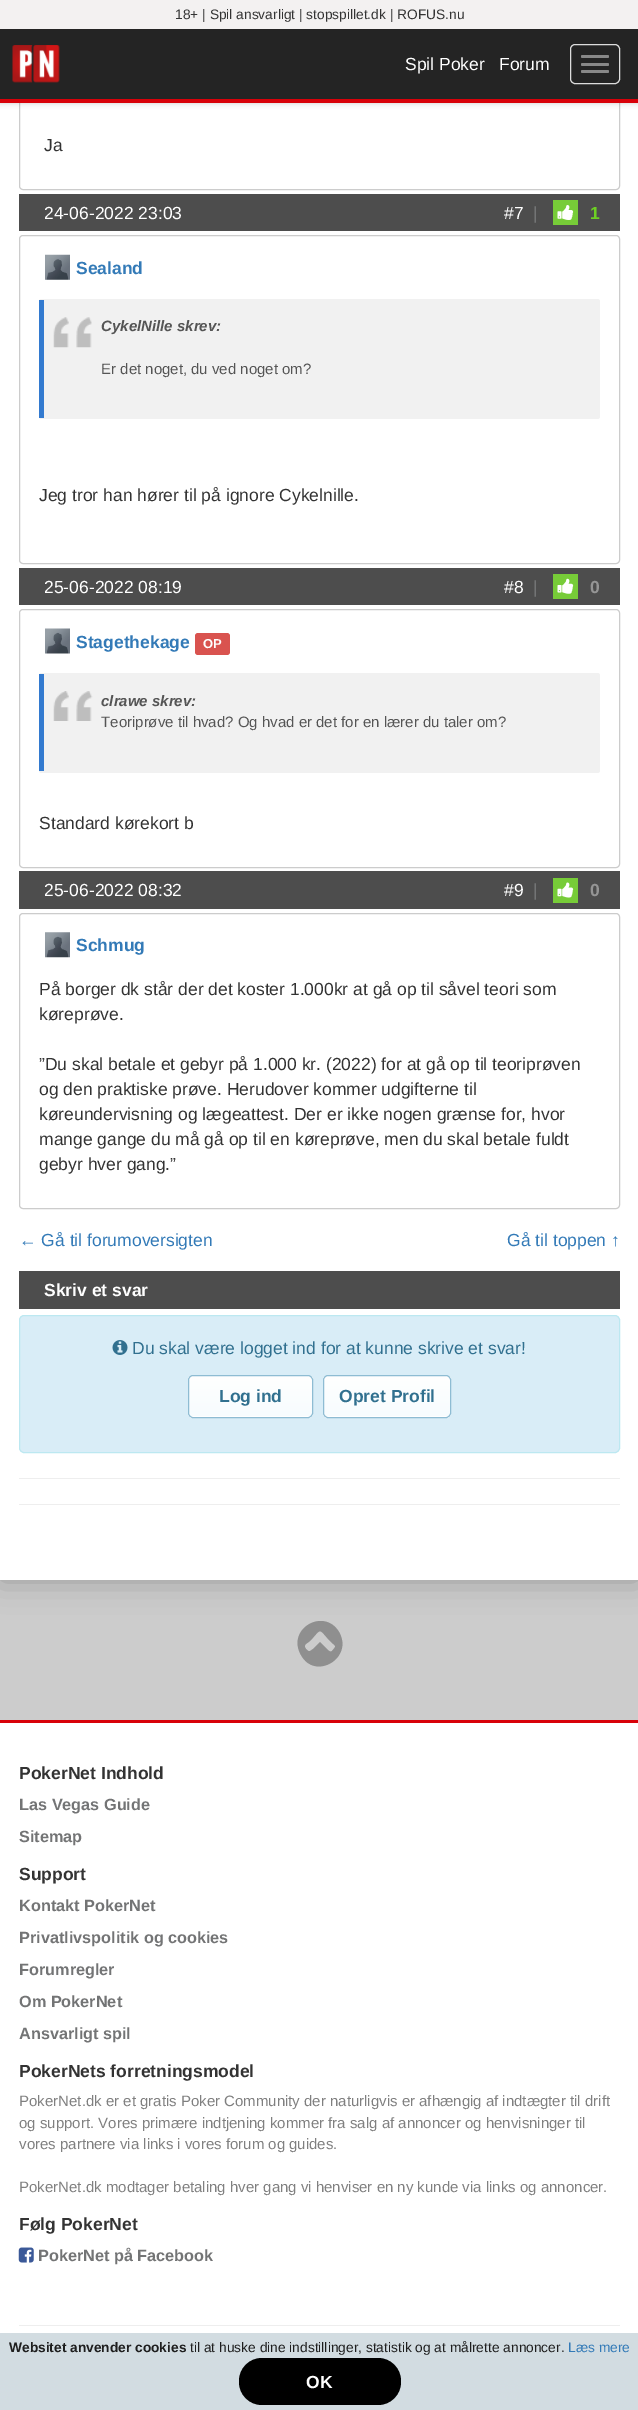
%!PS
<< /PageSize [638 2410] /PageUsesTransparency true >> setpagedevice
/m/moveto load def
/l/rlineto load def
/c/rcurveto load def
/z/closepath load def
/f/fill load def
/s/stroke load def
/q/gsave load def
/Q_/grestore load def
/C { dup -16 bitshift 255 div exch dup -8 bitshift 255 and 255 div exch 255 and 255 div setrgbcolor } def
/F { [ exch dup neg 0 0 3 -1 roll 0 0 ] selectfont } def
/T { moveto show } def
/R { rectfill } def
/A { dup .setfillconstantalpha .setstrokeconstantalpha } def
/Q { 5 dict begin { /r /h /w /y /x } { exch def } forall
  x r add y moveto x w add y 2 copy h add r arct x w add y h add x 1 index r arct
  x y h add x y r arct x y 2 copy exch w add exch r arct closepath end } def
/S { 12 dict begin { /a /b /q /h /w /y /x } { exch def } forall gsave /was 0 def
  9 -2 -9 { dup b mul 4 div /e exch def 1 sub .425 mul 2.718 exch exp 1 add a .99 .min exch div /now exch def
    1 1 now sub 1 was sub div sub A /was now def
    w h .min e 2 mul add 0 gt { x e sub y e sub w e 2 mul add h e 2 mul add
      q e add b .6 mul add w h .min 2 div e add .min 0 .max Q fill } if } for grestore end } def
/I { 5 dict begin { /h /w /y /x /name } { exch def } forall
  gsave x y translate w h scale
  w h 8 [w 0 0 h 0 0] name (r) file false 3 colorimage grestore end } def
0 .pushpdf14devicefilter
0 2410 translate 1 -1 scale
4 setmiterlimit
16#CCCCCC C
0 0 638 2410 R
16#000000 C
0 -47 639 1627 0 15.5 .25 S
16#FFFFFF C
0 103 638 1477 R
16#CCCCCC C
19.5 -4.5 600 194 3.5 Q s
16#000000 C
0 0 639 103 0 3 .2 S
16#242424 C
0 29 638 70 R
16#D80109 C
0 99 638 4 R
16#F3F1F1 C
0 0 638 29 R
/LiberationSans-Regular 13.75 F
16#333333 C
(18+ | Spil ansvarligt | stopspillet.dk | ROFUS.nu) 175 19 T
(1.rgb) 12 45 48 38 I
/LiberationSans-Regular 17.5 F
16#FFFFFF C
(Spil Poker) 405 70 T
(Forum) 499 70 T
16#DDDDDD C
570.5 44.5 49 39 4.5 Q s
16#888888 C
581 55 28 3 1.5 Q f
581 63 28 3 1.5 Q f
581 70 28 3 1.5 Q f
16#333333 C
(Ja) 44 151 T
16#4D4D4D C
19 194 601 37 R
16#FFFFFF C
(24-06-2022 23:03) 44 219 T
(#7) 504 219 T
16#737475 C
(|) 533 219 T
16#77CC38 C
553 200 25 25 R
(2.rgb) 557 205 17 15 I
/LiberationSans-Bold 17.5 F
16#6DD023 C
(1) 590 219 T
16#CCCCCC C
19.5 235.5 600 328 3.5 Q s
(3.rgb) 45 254 25 26 I
16#337AB7 C
(Sealand) 76 274 T
16#F1F1F1 C
39 299 561 120 2.5 Q f
(4.rgb) 53 317 39 31 I
16#337ACF C
39 300 5 118 R
/LiberationSans-BoldItalic 15 F
16#555555 C
(CykelNille skrev:) 101 331 T
/LiberationSans-Regular 15 F
(Er det noget, du ved noget om?) 101 374 T
/LiberationSans-Regular 17.5 F
16#333333 C
(Jeg tror han hører til på ignore Cykelnille.) 39 501 T
16#4D4D4D C
19 568 601 37 R
16#FFFFFF C
(25-06-2022 08:19) 44 593 T
(#8) 504 593 T
16#737475 C
(|) 533 593 T
16#77CC38 C
553 574 25 25 R
(5.rgb) 557 578 17 16 I
/LiberationSans-Bold 17.5 F
16#959595 C
(0) 590 593 T
16#CCCCCC C
19.5 609.5 600 258 3.5 Q s
(6.rgb) 45 628 25 26 I
16#337AB7 C
(Stagethekage) 76 648 T
16#D9534F C
195 633 35 22 3 Q f
/LiberationSans-Bold 13 F
16#FFFFFF C
(OP) 203 648 T
16#F1F1F1 C
39 673 561 100 2.5 Q f
(7.rgb) 53 691 40 30 I
16#337ACF C
39 674 5 97 R
/LiberationSans-BoldItalic 15 F
16#555555 C
(clrawe skrev:) 101 706 T
/LiberationSans-Regular 15 F
(Teoriprøve til hvad? Og hvad er det for en lærer du taler om?) 101 727 T
/LiberationSans-Regular 17.5 F
16#333333 C
(Standard kørekort b) 39 829 T
16#4D4D4D C
19 871 601 38 R
16#FFFFFF C
(25-06-2022 08:32) 44 896 T
(#9) 504 896 T
16#737475 C
(|) 533 896 T
16#77CC38 C
553 878 25 25 R
(8.rgb) 557 882 17 16 I
/LiberationSans-Bold 17.5 F
16#959595 C
(0) 590 896 T
16#CCCCCC C
19.5 913.5 600 295 3.5 Q s
(9.rgb) 45 932 25 26 I
16#337AB7 C
(Schmug) 76 951 T
/LiberationSans-Regular 17.5 F
16#333333 C
(På borger dk står der det koster 1.000kr at gå op til såvel teori som) 39 995 T
(køreprøve.) 39 1020 T
(”Du skal betale et gebyr på 1.000 kr. \(2022\) for at gå op til teoriprøven) 39 1070 T
(og den praktiske prøve. Herudover kommer udgifterne til) 39 1095 T
(køreundervisning og lægeattest. Der er ikke nogen grænse for, hvor) 39 1120 T
(mange gange du må gå op til en køreprøve, men du skal betale fuldt) 39 1145 T
(gebyr hver gang.”) 39 1170 T
16#337AB7 C
(← Gå til forumoversigten) 19 1246 T
(Gå til toppen ↑) 507 1246 T
16#4D4D4D C
19 1271 601 38 R
/LiberationSans-Bold 17.5 F
16#FFFFFF C
(Skriv et svar) 44 1296 T
16#D9EDF7 C
19.5 1315.5 600 137 4.5 Q q f Q_
16#BCE8F1 C
s
(10.rgb) 112 1340 16 15 I
/LiberationSans-Regular 17.5 F
16#31708F C
(Du skal være logget ind for at kunne skrive et svar!) 132 1354 T
q
188 1375 125 43 5 Q clip newpath
q 188 1376 m 125 0 l 0 40 l -125 0 l z clip newpath
<< /ShadingType 2 /ColorSpace /DeviceRGB /Coords [250 1376 250 1416] /Extend [true true] /Function << /FunctionType 2 /Domain [0 1] /C0 [1 1 1] /C1 [.969 .988 .996] /N 1 >> >> shfill Q_
q 188 1416 m 125 0 l 0 2 l -125 0 l z clip newpath
<< /ShadingType 2 /ColorSpace /DeviceRGB /Coords [250 1416 250 1456] /Extend [true true] /Function << /FunctionType 2 /Domain [0 1] /C0 [1 1 1] /C1 [.969 .988 .996] /N 1 >> >> shfill Q_
Q_
16#8EBCD3 C
188.5 1375.5 124 42 4.5 Q s
/LiberationSans-Bold 17.5 F
16#31708F C
(Log ind) 219 1402 T
q
323 1375 128 43 5 Q clip newpath
q 323 1376 m 128 0 l 0 40 l -128 0 l z clip newpath
<< /ShadingType 2 /ColorSpace /DeviceRGB /Coords [387 1376 387 1416] /Extend [true true] /Function << /FunctionType 2 /Domain [0 1] /C0 [1 1 1] /C1 [.969 .988 .996] /N 1 >> >> shfill Q_
q 323 1416 m 128 0 l 0 2 l -128 0 l z clip newpath
<< /ShadingType 2 /ColorSpace /DeviceRGB /Coords [387 1416 387 1456] /Extend [true true] /Function << /FunctionType 2 /Domain [0 1] /C0 [1 1 1] /C1 [.969 .988 .996] /N 1 >> >> shfill Q_
Q_
16#8EBCD3 C
323.5 1375.5 127 42 4.5 Q s
16#31708F C
(Opret Profil) 339 1402 T
16#EEEEEE C
19 1478 601 1 R
19 1504 601 1 R
16#8F8F8F C
332 1651 m 5 -6 4 -4 -2 -10 c -12 -13 -8 -13 -20 0 c -4 3 -7 4 -4 8 c 3 3 3 3 7 0 c 7 -7 l 6 6 l 1 1 4 5 6 3 c z 339 1632 m 15 26 -24 49 -38 23 c -15 -26 23 -48 38 -23 c z f
16#FFFFFF C
0 1723 638 610 R
16#D80109 C
0 1720 638 3 R
16#333333 C
(PokerNet Indhold) 19 1779 T
/LiberationSans-Bold 16.25 F
16#737475 C
(Las Vegas Guide) 19 1810 T
(Sitemap) 19 1842 T
/LiberationSans-Bold 17.5 F
16#333333 C
(Support) 19 1880 T
/LiberationSans-Bold 16.25 F
16#737475 C
(Kontakt PokerNet) 19 1911 T
(Privatlivspolitik og cookies) 19 1943 T
(Forumregler) 19 1975 T
(Om PokerNet) 19 2007 T
(Ansvarligt spil) 19 2039 T
/LiberationSans-Bold 17.5 F
16#333333 C
(PokerNets forretningsmodel) 19 2077 T
/LiberationSans-Regular 15 F
16#808080 C
(PokerNet.dk er et gratis Poker Community der naturligvis er afhængig af indtægter til drift) 19 2106 T
(og support. Vores primære indtjening kommer fra salg af annoncer og henvisninger til) 19 2128 T
(vores partnere via links i vores forum og guides.) 19 2149 T
(PokerNet.dk modtager betaling hver gang vi henviser en ny kunde via links og annoncer.) 19 2192 T
/LiberationSans-Bold 17.5 F
16#333333 C
(Følg PokerNet) 19 2230 T
(11.rgb) 18 2247 16 16 I
/LiberationSans-Bold 16.25 F
16#737475 C
(PokerNet på Facebook) 38 2261 T
16#EEEEEE C
19 2325 601 1 R
16#D2DCE1 C
0 2333 638 77 R
/LiberationSans-Bold 13.75 F
16#1E1E1E C
(Websitet anvender cookies) 9 2352 T
/LiberationSans-Regular 13.75 F
(til at huske dine indstillinger, statistik og at målrette annoncer.) 190 2352 T
16#337AB7 C
(Læs mere) 568 2352 T
16#000000 C
239 2358 162 47 23 Q f
/LiberationSans-Bold 17.5 F
16#FFFFFF C
(OK) 306 2388 T
.poppdf14devicefilter showpage
